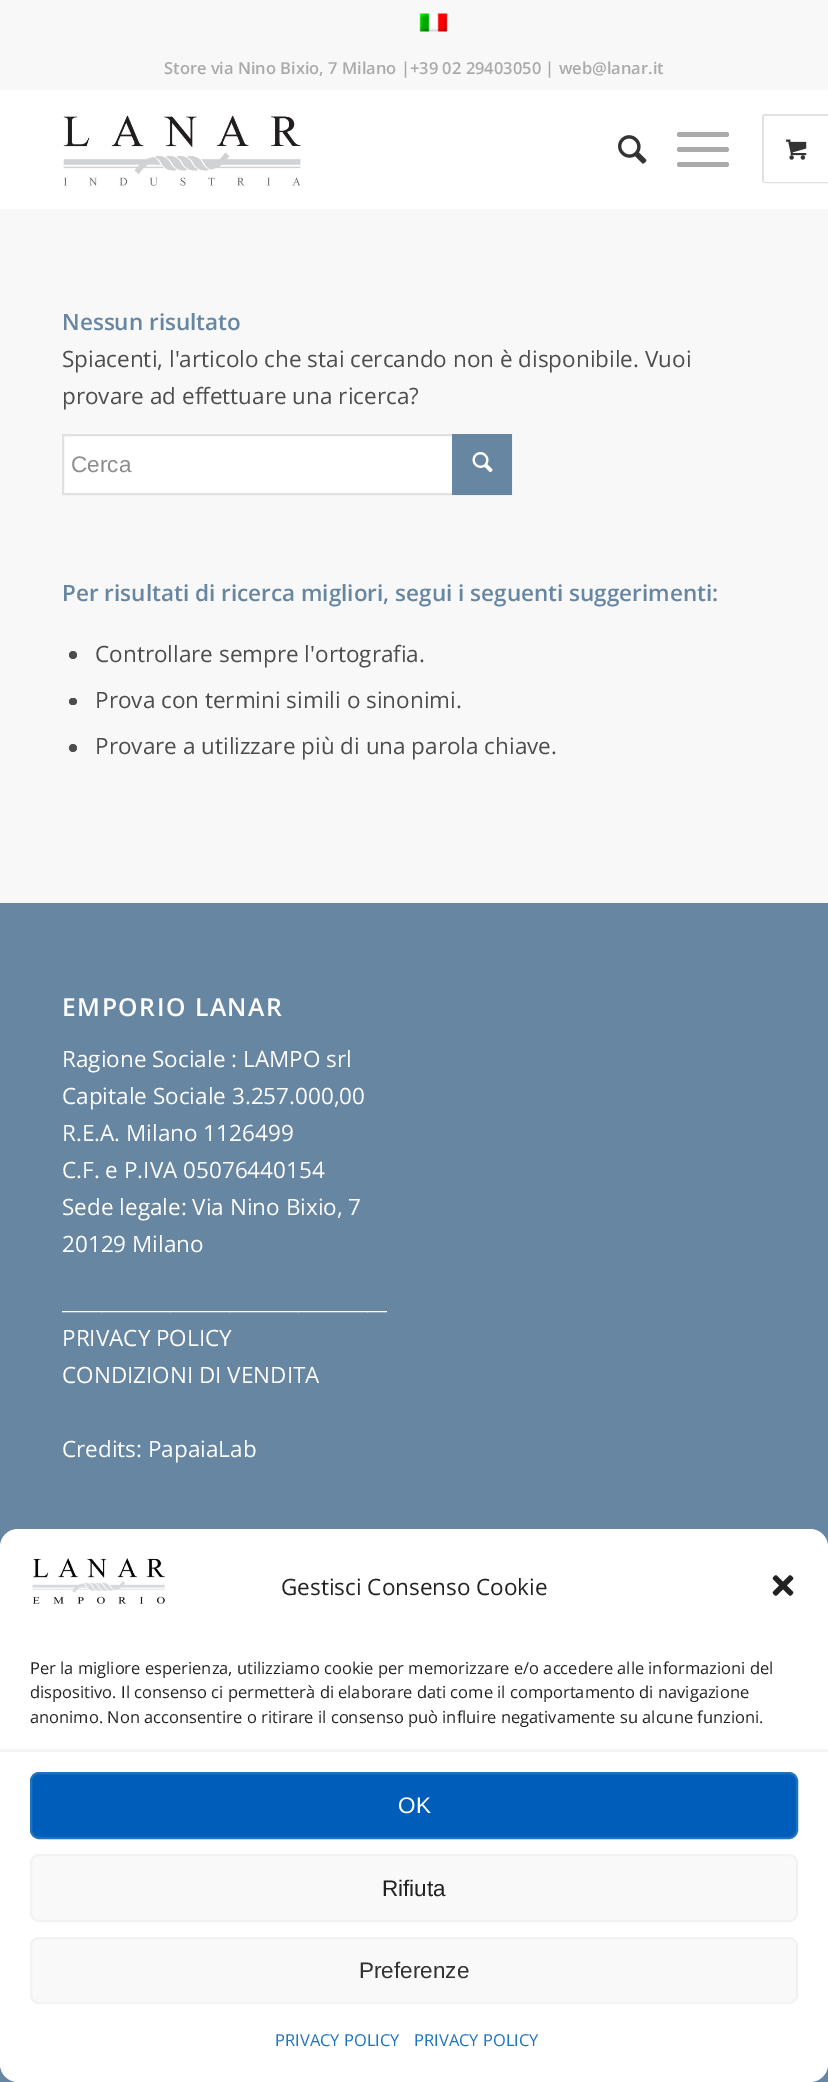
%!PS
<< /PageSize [828 2082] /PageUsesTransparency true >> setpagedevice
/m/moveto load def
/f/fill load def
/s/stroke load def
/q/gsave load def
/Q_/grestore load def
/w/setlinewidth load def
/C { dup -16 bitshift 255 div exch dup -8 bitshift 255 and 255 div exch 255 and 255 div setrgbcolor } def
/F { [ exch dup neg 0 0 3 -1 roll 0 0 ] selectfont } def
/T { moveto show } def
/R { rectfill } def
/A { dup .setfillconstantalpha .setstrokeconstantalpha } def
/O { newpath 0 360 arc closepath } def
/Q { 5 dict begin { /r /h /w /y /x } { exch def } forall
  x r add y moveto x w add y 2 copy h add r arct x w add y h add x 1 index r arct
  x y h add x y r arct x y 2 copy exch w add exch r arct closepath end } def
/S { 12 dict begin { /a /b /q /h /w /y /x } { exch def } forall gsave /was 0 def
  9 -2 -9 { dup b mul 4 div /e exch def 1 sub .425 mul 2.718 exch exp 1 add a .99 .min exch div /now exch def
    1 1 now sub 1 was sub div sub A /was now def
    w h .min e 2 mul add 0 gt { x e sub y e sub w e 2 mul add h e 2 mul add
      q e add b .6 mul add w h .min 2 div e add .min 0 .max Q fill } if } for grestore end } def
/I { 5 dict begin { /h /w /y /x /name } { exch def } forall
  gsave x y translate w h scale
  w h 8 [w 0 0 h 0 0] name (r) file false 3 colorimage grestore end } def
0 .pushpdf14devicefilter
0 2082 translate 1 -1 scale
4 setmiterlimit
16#F8F8F8 C
0 0 828 2082 R
(1.rgb) 419 13 29 19 I
/OpenSans-SemiBold 16.5 F
16#AAAAAA C
(Store via Nino Bixio, 7 Milano |+39 02 29403050 | web@lanar.it) 164 74 T
16#FFFFFF C
0 90 828 119 R
(2.rgb) 63 115 238 71 I
(3.rgb) 618 135 29 29 I
16#AAAAAA C
677 147 52 5 2.5 Q f
677 132 52 5 2.5 Q f
677 162 52 5 2.5 Q f
16#E1E1E1 C
2 w
763 115 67 67 2 Q s
16#FFFFFF C
764 116 64 66 R
(4.rgb) 786 139 21 21 I
/OpenSans-SemiBold 22.5 F
16#6786A1 C
(Nessun risultato) 62 330 T
/OpenSans-Regular 22.5 F
16#4D4D4D C
(Spiacenti, l'articolo che stai cercando non è disponibile. Vuoi) 62 367 T
(provare ad effettuare una ricerca?) 62 404 T
16#FFFFFF C
64 436 388 57 R
16#E1E1E1 C
63 435 448 59 rectstroke
/LiberationSans-Regular 22.5 F
16#8D8D8D C
(Cerca) 71 472 T
16#6786A1 C
452 434 60 61 R
(5.rgb) 472 452 21 21 I
/OpenSans-SemiBold 22.5 F
(Per risultati di ricerca migliori, segui i seguenti suggerimenti:) 62 601 T
16#4D4D4D C
73 655 4 O f
/OpenSans-Regular 22.5 F
(Controllare sempre l'ortografia.) 95 662 T
69 698 8 7 3.5 Q f
(Prova con termini simili o sinonimi.) 95 708 T
73 748 4 O f
(Provare a utilizzare più di una parola chiave.) 95 754 T
16#6786A1 C
0 903 828 1179 R
/OpenSans-SemiBold 24.75 F
16#FFFFFF C
62 1016 m 1.5 0 (EMPORIO LANAR) ashow
/OpenSans-Regular 22.5 F
(Ragione Sociale : LAMPO srl) 62 1067 T
(Capitale Sociale 3.257.000,00) 62 1104 T
(R.E.A. Milano 1126499) 62 1141 T
(C.F. e P.IVA 05076440154) 62 1178 T
(Sede legale: Via Nino Bixio, 7) 62 1215 T
(20129 Milano) 62 1252 T
(_________________________________) 62 1309 T
(PRIVACY POLICY) 62 1346 T
(CONDIZIONI DI VENDITA) 62 1383 T
(Credits: PapaiaLab) 62 1457 T
0 1529 828 553 18 Q f
(6.rgb) 32 1558 133 46 I
16#222222 C
(Gestisci Consenso Cookie) 281 1595 T
(7.rgb) 772 1575 22 21 I
/OpenSans-Regular 16.5 F
(Per la migliore esperienza, utilizziamo cookie per memorizzare e/o accedere alle informazioni del) 30 1674 T
(dispositivo. Il consenso ci permetterà di elaborare dati come il comportamento di navigazione) 30 1698 T
(anonimo. Non acconsentire o ritirare il consenso può influire negativamente su alcune funzioni.) 30 1723 T
q
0 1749 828 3 rectclip
16#000000 C
0 1749 828 5 0 2 .05 S
Q_
16#005DBA C
31 1773 766 65 8 Q q f Q_
16#1E73BE C
s
/LiberationSans-Regular 22.5 F
16#FFFFFF C
(OK) 398 1813 T
16#F9F9F9 C
31 1855 766 66 8 Q q f Q_
16#F2F2F2 C
s
16#222222 C
(Rifiuta) 382 1896 T
16#F9F9F9 C
31 1938 766 65 8 Q q f Q_
16#F2F2F2 C
s
16#333333 C
(Preferenze) 359 1978 T
/OpenSans-Regular 16.5 F
16#1E73BE C
(PRIVACY POLICY) 275 2046 T
(PRIVACY POLICY) 414 2046 T
.poppdf14devicefilter showpage
